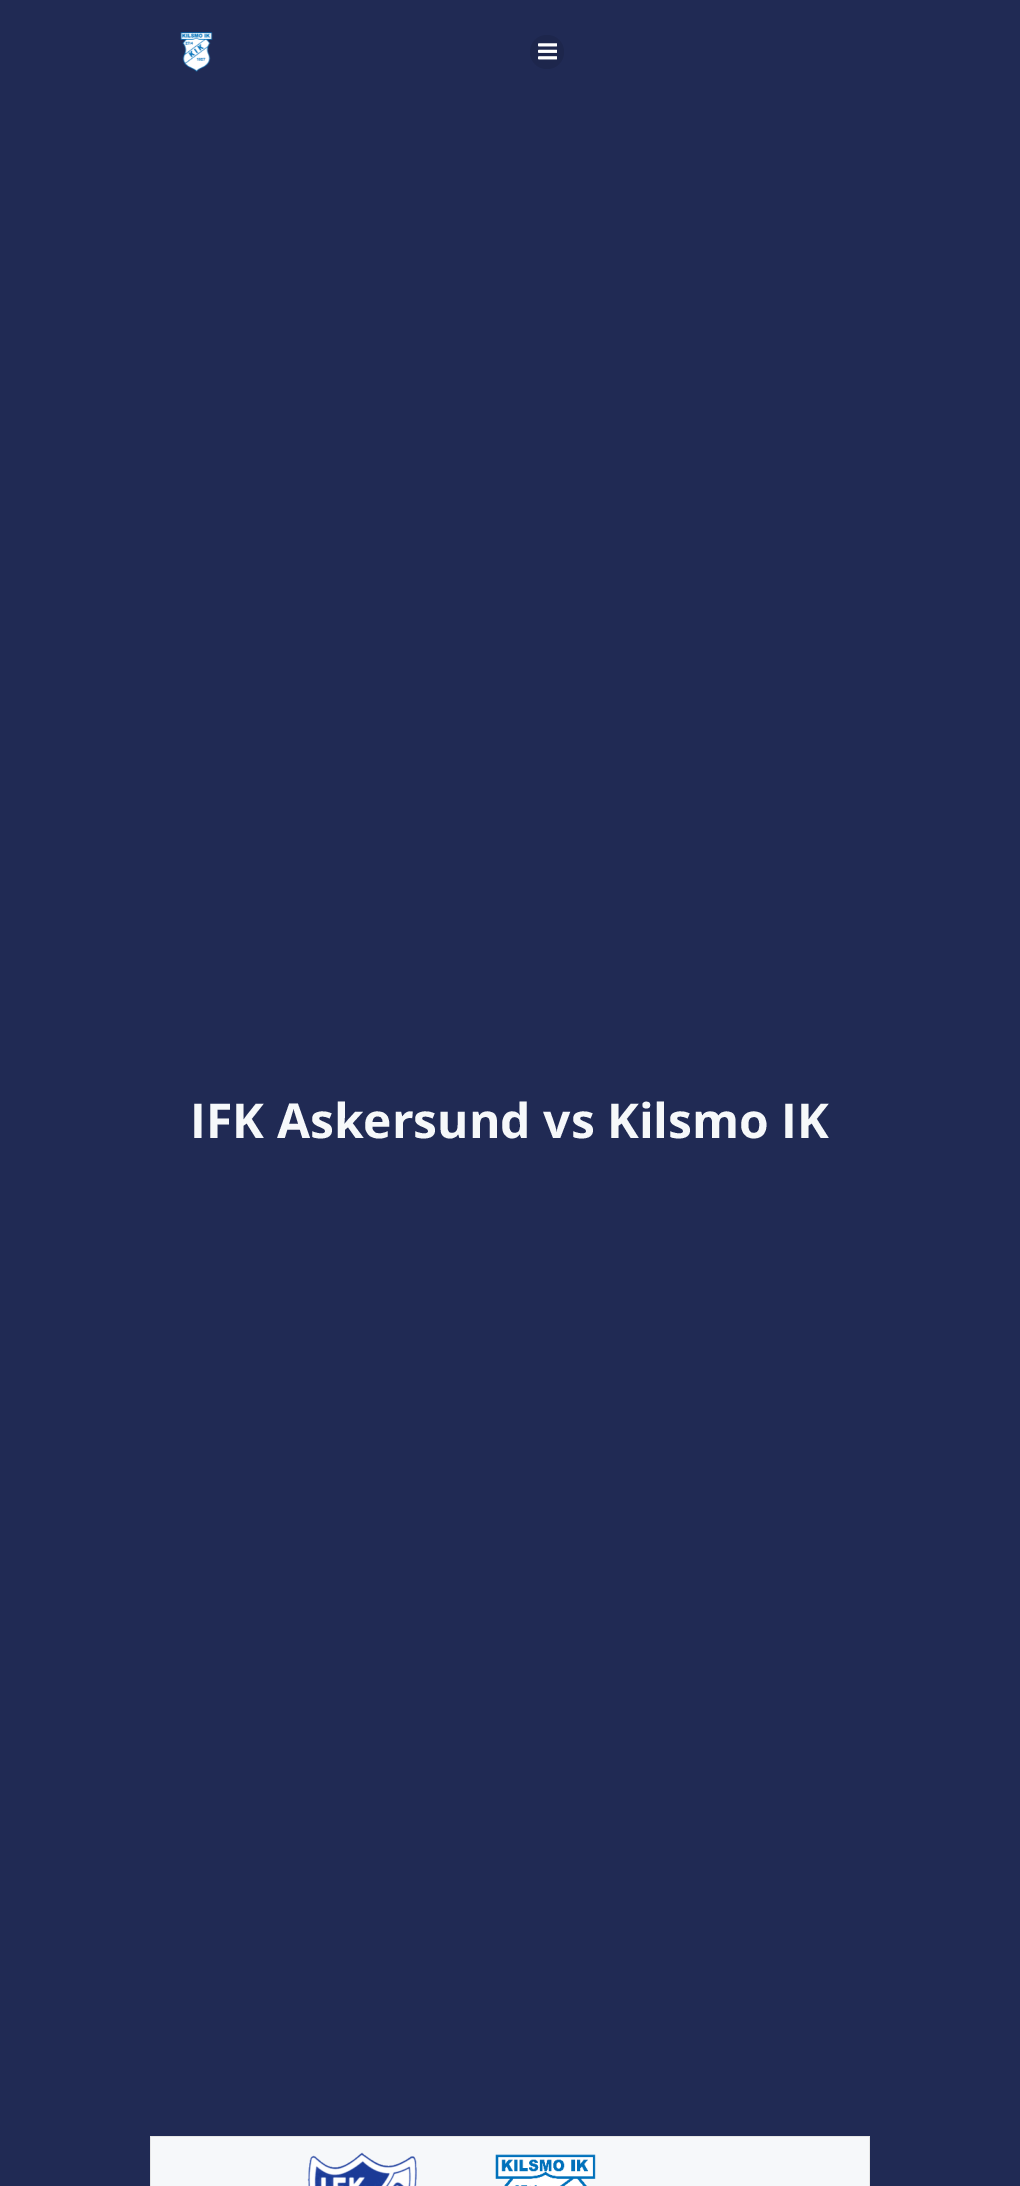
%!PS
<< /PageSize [1020 2186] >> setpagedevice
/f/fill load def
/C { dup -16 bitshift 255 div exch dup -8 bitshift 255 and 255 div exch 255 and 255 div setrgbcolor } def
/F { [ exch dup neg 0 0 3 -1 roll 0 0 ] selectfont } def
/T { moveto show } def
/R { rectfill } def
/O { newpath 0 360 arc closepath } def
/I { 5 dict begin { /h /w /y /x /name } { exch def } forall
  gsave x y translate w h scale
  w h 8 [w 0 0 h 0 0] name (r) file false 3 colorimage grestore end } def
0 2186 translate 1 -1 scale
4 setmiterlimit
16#202A54 C
0 0 1020 2186 R
(1.rgb) 180 32 33 40 I
16#1D264C C
547 52 17 O f
(2.rgb) 538 43 19 17 I
/OpenSans-Bold 48 F
16#F6F8FA C
(IFK Askersund vs Kilsmo IK) 190 1138 T
151 2137 718 49 R
16#E6E6E6 C
150 2136 720 1 R
869 2136 1 50 R
150 2136 1 50 R
(3.rgb) 307 2152 110 34 I
(4.rgb) 495 2154 101 32 I
showpage
